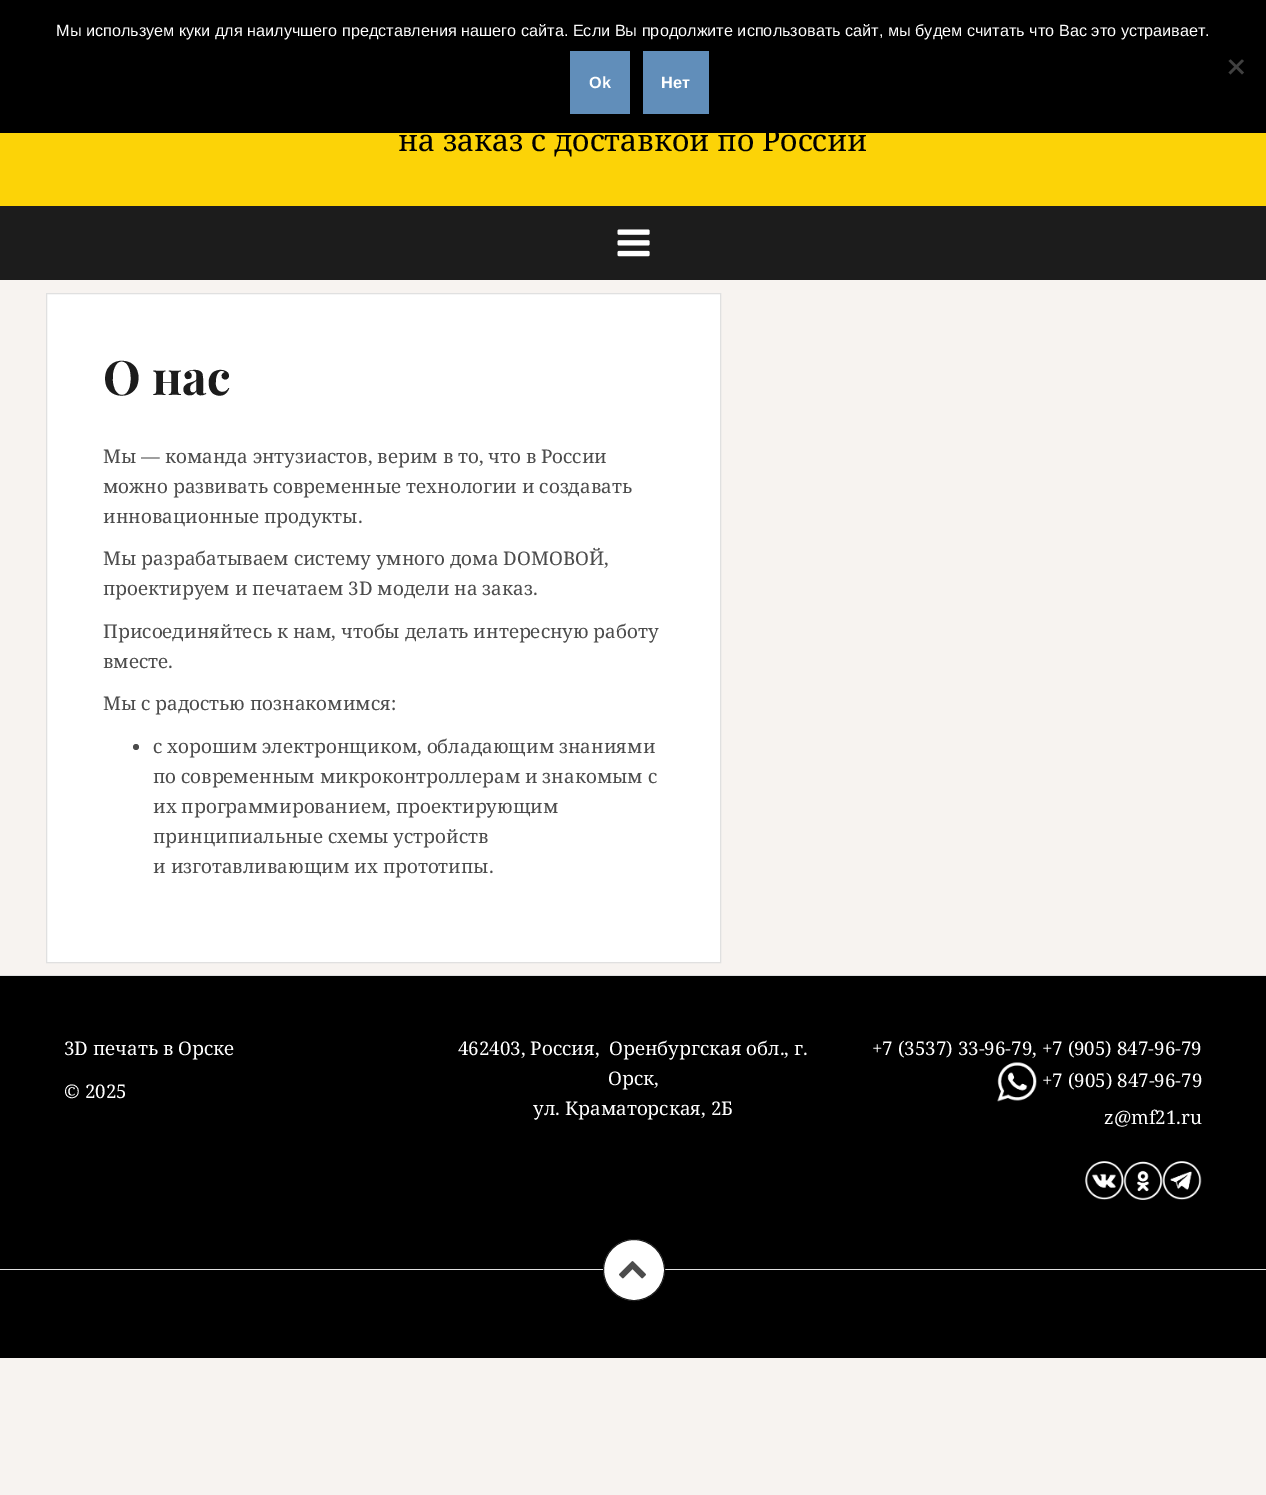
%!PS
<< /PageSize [1266 1495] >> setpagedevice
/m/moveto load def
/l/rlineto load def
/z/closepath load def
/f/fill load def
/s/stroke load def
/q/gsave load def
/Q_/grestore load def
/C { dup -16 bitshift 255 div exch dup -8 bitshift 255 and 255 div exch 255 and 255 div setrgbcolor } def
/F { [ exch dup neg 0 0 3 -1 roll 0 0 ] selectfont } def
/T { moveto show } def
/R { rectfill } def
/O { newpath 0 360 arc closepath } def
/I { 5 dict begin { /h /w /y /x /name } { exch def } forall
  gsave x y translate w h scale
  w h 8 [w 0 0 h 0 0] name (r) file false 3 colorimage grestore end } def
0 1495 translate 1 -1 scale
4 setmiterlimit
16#F7F3F0 C
0 0 1266 1495 R
16#000000 C
0 0 1266 133 R
/LiberationSans-Regular 16.25 F
16#FFFFFF C
(Мы используем куки для наилучшего представления нашего сайта. Если Вы продолжите использовать сайт, мы будем считать что Вас это устраивает.) 56 36 T
16#404040 C
1242 59.5 m 2 1.5 l -13.5 13.5 l -2 -2 l z f
1228.5 61 m 2 -1.5 l 13.5 13 l -2 2 l z f
16#618EBA C
570 51 60 63 R
/LiberationSans-Bold 16.25 F
16#FFFFFF C
(Ok) 589 88 T
16#618EBA C
643 51 66 63 R
16#FFFFFF C
(Нет) 661 88 T
16#FCD307 C
0 133 1266 73 R
/NotoSerif-Regular 30 F
16#000000 C
(на заказ с доставкой по России) 398 151 T
16#1C1C1C C
0 206 1266 74 R
(1.rgb) 617 229 33 28 I
16#FFFFFF C
46.5 293.5 m 674 0 l 0 669 l -674 0 l z q f Q_
16#E0E0E0 C
s
/PlayfairDisplay-Bold 47.5 F
16#1C1C1C C
(О нас) 103 395 T
/NotoSerif-Regular 18.75 F
16#4C4C4C C
(Мы — команда энтузиастов, верим в то, что в России) 103 463 T
(можно развивать современные технологии и создавать) 103 493 T
(инновационные продукты.) 103 523 T
(Мы разрабатываем систему умного дома DОМОВОЙ,) 103 565 T
(проектируем и печатаем 3D модели на заказ.) 103 595 T
(Присоединяйтесь к нам, чтобы делать интересную работу) 103 638 T
(вместе.) 103 668 T
(Мы с радостью познакомимся:) 103 710 T
136 747 3 O f
(с хорошим электронщиком, обладающим знаниями) 153 753 T
(по современным микроконтроллерам и знакомым с) 153 783 T
(их программированием, проектирующим) 153 813 T
(принципиальные схемы устройств) 153 843 T
(и изготавливающим их прототипы.) 153 873 T
16#000000 C
0 976 1266 293 R
16#E0E0E0 C
0 975 1266 1 R
16#FFFFFF C
(3D печать в Орске) 64 1055 T
(© 2025) 64 1098 T
(462403, Россия,  Оренбургская обл., г.) 458 1055 T
(Орск,) 608 1085 T
(ул. Краматорская, 2Б) 533 1115 T
(+7 \(3537\) 33-96-79, +7 \(905\) 847-96-79) 872 1055 T
(2.rgb) 997 1062 40 40 I
(+7 \(905\) 847-96-79) 1042 1087 T
(z@mf21.ru) 1104 1124 T
(5.rgb) 1162 1161 40 39 I
(4.rgb) 1123 1161 40 39 I
(3.rgb) 1085 1161 39 39 I
16#000000 C
0 1270 1266 88 R
16#E0E0E0 C
0 1269 1266 1 R
16#FFFFFF C
634 1270 30.5 O q f Q_
16#1C1C1C C
s
(6.rgb) 619 1261 27 18 I
showpage
